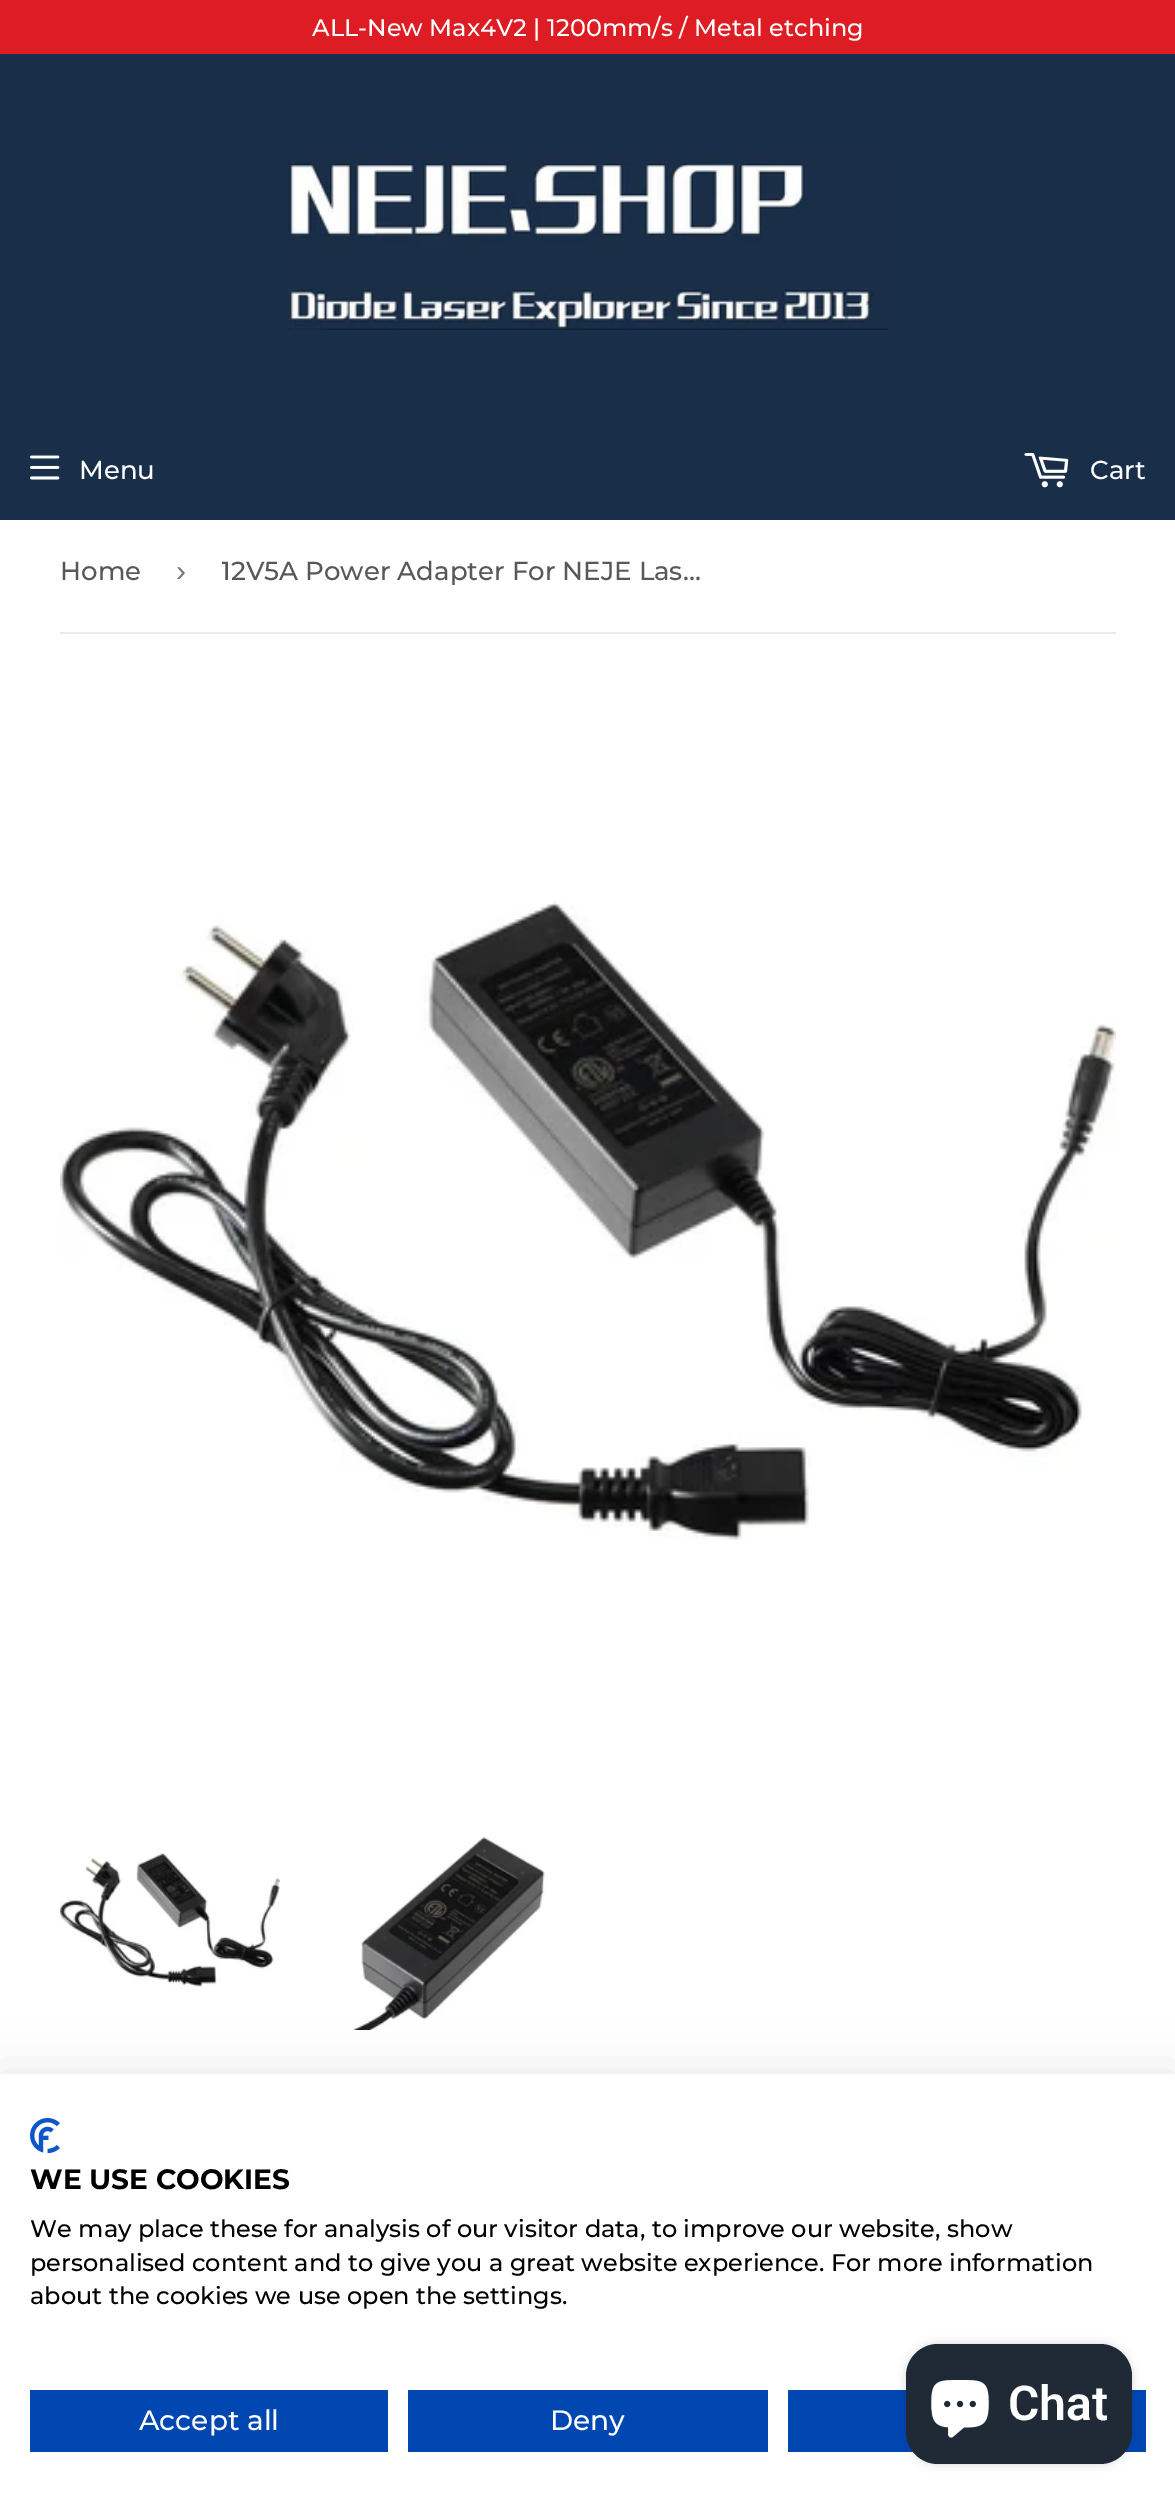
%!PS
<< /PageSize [1175 2506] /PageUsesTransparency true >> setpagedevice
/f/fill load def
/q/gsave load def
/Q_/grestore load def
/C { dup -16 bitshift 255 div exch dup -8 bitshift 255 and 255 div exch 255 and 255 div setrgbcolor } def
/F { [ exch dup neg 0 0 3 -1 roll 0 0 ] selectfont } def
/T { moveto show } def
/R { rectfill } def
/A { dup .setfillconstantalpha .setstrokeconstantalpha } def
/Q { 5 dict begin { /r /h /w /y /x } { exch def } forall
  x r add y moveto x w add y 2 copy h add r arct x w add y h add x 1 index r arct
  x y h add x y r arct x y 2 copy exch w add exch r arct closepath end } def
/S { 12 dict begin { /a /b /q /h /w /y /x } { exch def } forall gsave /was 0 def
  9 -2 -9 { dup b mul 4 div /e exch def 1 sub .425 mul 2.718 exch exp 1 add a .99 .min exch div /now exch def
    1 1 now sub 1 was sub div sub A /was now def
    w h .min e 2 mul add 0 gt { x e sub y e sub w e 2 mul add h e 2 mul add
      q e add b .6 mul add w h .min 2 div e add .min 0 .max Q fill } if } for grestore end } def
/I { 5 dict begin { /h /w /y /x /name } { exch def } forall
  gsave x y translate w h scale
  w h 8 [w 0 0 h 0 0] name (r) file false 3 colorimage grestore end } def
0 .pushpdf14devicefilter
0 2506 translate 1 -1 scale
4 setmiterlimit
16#FFFFFF C
0 0 1175 2506 R
16#DE1C24 C
0 0 1175 54 R
/Montserrat-Medium 24 F
16#FFFFFF C
(ALL-New Max4V2 | 1200mm/s / Metal etching) 312 36 T
16#182E49 C
0 54 1175 466 R
(1.rgb) 288 155 600 175 I
(2.rgb) 30 455 30 25 I
/Montserrat-Medium 26 F
16#FFFFFF C
(Menu) 79 479 T
(3.rgb) 1024 453 45 35 I
(Cart) 1090 479 T
16#ECECEC C
60 632 1056 2 R
16#585858 C
(Home) 60 580 T
/LiberationSans-Regular 30 F
16#767676 C
(›) 176 581 T
q
222 520 500 102 rectclip
/Montserrat-Medium 26 F
16#585858 C
(12V5A Power Adapter For NEJE Las…) 221 580 T
Q_
(4.rgb) 60 900 1056 640 I
(5.rgb) 60 1853 220 134 I
(6.rgb) 353 1837 194 193 I
16#000000 C
0 2074 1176 432 0 24 .1 S
16#FFFFFF C
0 2074 1175 432 R
(7.rgb) 30 2118 30 36 I
/Montserrat-Bold 28 F
16#000000 C
(WE USE COOKIES) 30 2189 T
/Montserrat-Medium 24 F
(We may place these for analysis of our visitor data, to improve our website, show) 30 2237 T
(personalised content and to give you a great website experience. For more information) 30 2271 T
(about the cookies we use open the settings.) 30 2304 T
16#0047B2 C
30 2390 358 62 R
/Montserrat-Medium 28 F
16#FFFFFF C
(Accept all) 139 2430 T
16#0047B2 C
408 2390 360 62 R
16#FFFFFF C
(Deny) 550 2430 T
16#0047B2 C
788 2390 358 62 R
16#000000 C
906 2344 226 120 32 5 .15 S
16#202A36 C
906 2344 226 120 32 Q f
(8.rgb) 931 2380 58 58 I
/Roboto-SemiBold 48 F
16#FFFFFF C
(Chat) 1008 2420 T
.poppdf14devicefilter showpage
